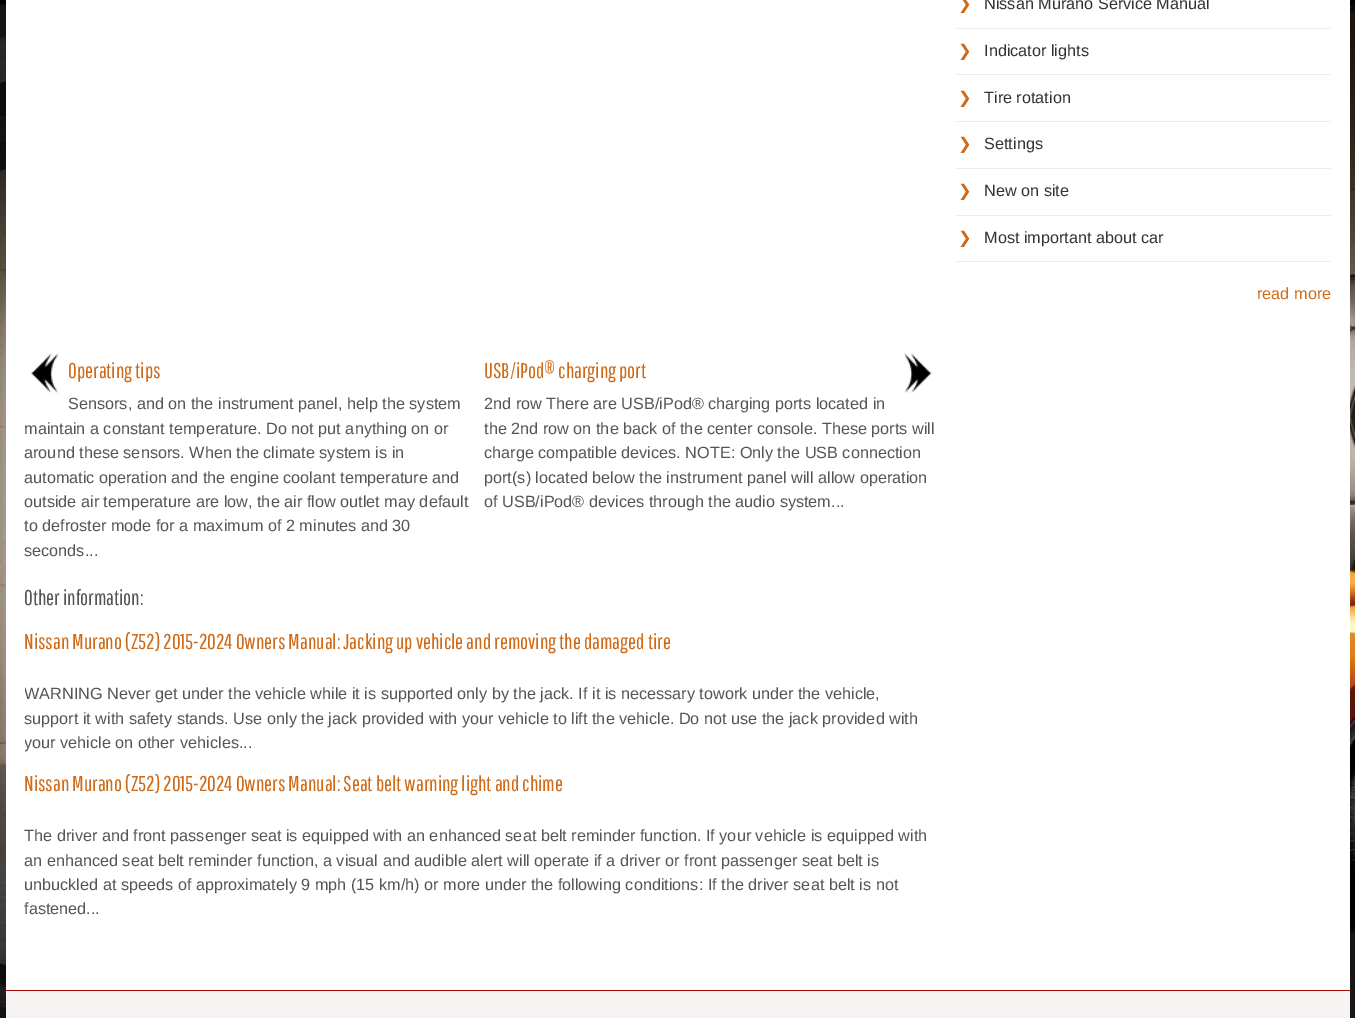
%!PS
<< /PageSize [1355 1018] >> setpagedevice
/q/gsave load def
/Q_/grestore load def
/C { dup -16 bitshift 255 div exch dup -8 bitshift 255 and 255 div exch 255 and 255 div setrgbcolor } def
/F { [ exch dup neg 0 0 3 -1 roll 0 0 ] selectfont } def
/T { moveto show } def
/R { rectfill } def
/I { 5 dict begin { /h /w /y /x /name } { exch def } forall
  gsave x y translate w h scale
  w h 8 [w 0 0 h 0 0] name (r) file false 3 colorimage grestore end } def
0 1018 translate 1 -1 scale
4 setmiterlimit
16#FFFFFF C
0 0 1355 1018 R
(1.rgb) 0 0 1355 1018 I
6 0 1344 990 R
16#EEEEEE C
956 28 375 1 R
/DejaVuSans-Regular 16.25 F
16#CF6B18 C
(❯) 958 9 T
/LiberationSans-Regular 16.25 F
16#333333 C
(Nissan Murano Service Manual) 984 9 T
16#EEEEEE C
956 74 375 1 R
/DejaVuSans-Regular 16.25 F
16#CF6B18 C
(❯) 958 56 T
/LiberationSans-Regular 16.25 F
16#333333 C
(Indicator lights) 984 56 T
16#EEEEEE C
956 121 375 1 R
/DejaVuSans-Regular 16.25 F
16#CF6B18 C
(❯) 958 103 T
/LiberationSans-Regular 16.25 F
16#333333 C
(Tire rotation) 984 103 T
16#EEEEEE C
956 168 375 1 R
/DejaVuSans-Regular 16.25 F
16#CF6B18 C
(❯) 958 149 T
/LiberationSans-Regular 16.25 F
16#333333 C
(Settings) 984 149 T
16#EEEEEE C
956 215 375 1 R
/DejaVuSans-Regular 16.25 F
16#CF6B18 C
(❯) 958 196 T
/LiberationSans-Regular 16.25 F
16#333333 C
(New on site) 984 196 T
16#EEEEEE C
956 261 375 1 R
/DejaVuSans-Regular 16.25 F
16#CF6B18 C
(❯) 958 243 T
/LiberationSans-Regular 16.25 F
16#333333 C
(Most important about car) 984 243 T
16#CF6B18 C
(read more) 1257 299 T
(2.rgb) 31 353 28 40 I
/PathwayGothicOne-Regular 21.25 F
(Operating tips) 68 378 T
/LiberationSans-Regular 16.25 F
16#555555 C
(Sensors, and on the instrument panel, help the system) 68 409 T
(maintain a constant temperature. Do not put anything on or) 24 434 T
(around these sensors. When the climate system is in) 24 458 T
(automatic operation and the engine coolant temperature and) 24 483 T
(outside air temperature are low, the air flow outlet may default) 24 507 T
(to defroster mode for a maximum of 2 minutes and 30) 24 531 T
(seconds...) 24 556 T
/PathwayGothicOne-Regular 21.25 F
16#CF6B18 C
(USB/iPod® charging port) 484 378 T
(3.rgb) 904 353 28 40 I
/LiberationSans-Regular 16.25 F
16#555555 C
(2nd row There are USB/iPod® charging ports located in) 484 409 T
(the 2nd row on the back of the center console. These ports will) 484 434 T
(charge compatible devices. NOTE: Only the USB connection) 484 458 T
(port\(s\) located below the instrument panel will allow operation) 484 483 T
(of USB/iPod® devices through the audio system...) 484 507 T
/PathwayGothicOne-Regular 21.25 F
(Other information:) 24 605 T
16#CF6B18 C
(Nissan Murano \(Z52\) 2015-2024 Owners Manual: Jacking up vehicle and removing the damaged tire) 24 649 T
q
25 0 913 946 rectclip
/LiberationSans-Regular 16.25 F
16#555555 C
(WARNING) 24 699 T
Q_
/LiberationSans-Regular 16.25 F
16#555555 C
(Never get under the vehicle while it is supported only by the jack. If it is necessary towork under the vehicle,) 107 699 T
(support it with safety stands. Use only the jack provided with your vehicle to lift the vehicle. Do not use the jack provided with) 24 724 T
q
25 0 913 946 rectclip
(your vehicle on other) 24 748 T
Q_
(vehicles...) 180 748 T
/PathwayGothicOne-Regular 21.25 F
16#CF6B18 C
(Nissan Murano \(Z52\) 2015-2024 Owners Manual: Seat belt warning light and chime) 24 791 T
/LiberationSans-Regular 16.25 F
16#555555 C
(The driver and front passenger seat is equipped with an enhanced seat belt reminder function. If your vehicle is equipped with) 24 841 T
(an enhanced seat belt reminder function, a visual and audible alert will operate if a driver or front passenger seat belt is) 24 866 T
(unbuckled at speeds of approximately 9 mph \(15 km/h\) or more under the following conditions: If the driver seat belt is not) 24 890 T
(fastened...) 24 914 T
16#F7F3F3 C
6 991 1344 27 R
16#A00808 C
6 990 1344 1 R
showpage
